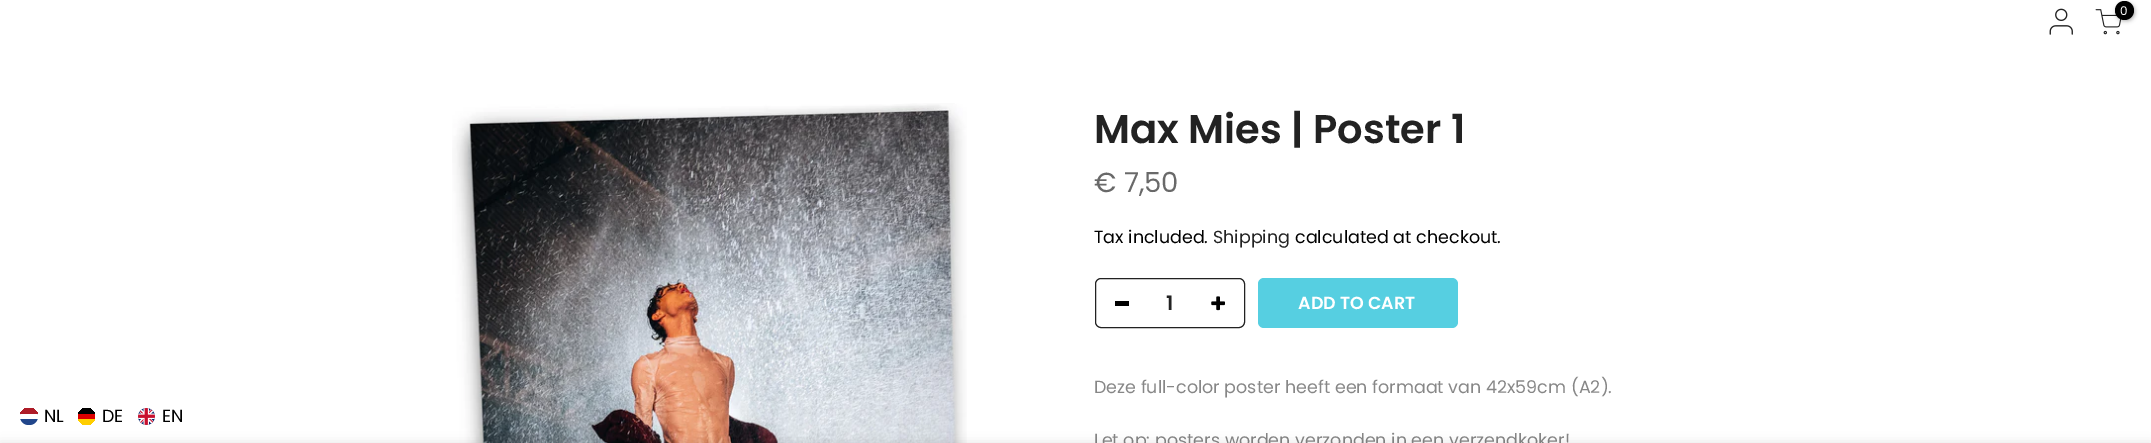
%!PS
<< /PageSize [2151 443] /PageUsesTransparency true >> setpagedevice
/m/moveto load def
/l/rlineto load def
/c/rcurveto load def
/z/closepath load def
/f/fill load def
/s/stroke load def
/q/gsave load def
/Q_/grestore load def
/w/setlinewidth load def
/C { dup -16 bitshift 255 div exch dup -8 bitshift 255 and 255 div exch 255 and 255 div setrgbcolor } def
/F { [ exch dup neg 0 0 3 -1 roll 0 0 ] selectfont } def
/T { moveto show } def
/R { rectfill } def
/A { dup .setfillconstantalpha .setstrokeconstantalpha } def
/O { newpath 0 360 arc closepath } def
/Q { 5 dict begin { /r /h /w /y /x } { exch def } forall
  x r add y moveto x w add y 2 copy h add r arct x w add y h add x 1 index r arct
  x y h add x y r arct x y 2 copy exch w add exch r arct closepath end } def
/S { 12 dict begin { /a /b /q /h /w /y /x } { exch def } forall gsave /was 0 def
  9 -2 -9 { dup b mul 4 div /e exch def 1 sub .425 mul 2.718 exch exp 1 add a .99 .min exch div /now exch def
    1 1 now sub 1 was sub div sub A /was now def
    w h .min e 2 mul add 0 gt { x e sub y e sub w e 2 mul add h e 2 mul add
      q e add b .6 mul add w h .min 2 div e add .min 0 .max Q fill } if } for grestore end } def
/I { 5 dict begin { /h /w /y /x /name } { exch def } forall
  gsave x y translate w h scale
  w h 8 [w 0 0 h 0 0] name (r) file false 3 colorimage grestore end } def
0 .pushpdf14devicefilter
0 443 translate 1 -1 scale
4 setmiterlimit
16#FFFFFF C
0 0 2151 443 R
16#21468B C
20 408 18 17 8.5 Q f
q
20 408 18 17 8.5 Q clip newpath
16#FFFFFF C
28.5 408 m 1 0 l 4.5 0 8.5 4 8.5 8.5 c 0 2.5 l -18 0 l 0 -2.5 l 0 -4.5 4 -8.5 8.5 -8.5 c z f
16#AE1C28 C
20 408 18 6 R
Q_
/Poppins-Regular 17.5 F
16#000000 C
(NL) 44 422 T
q
78 408 17 17 8.5 Q clip newpath
16#FFCE00 C
78 419 17 6 R
16#000000 C
78 408 17 6 R
16#DD0000 C
78 414 17 5 R
Q_
(DE) 102 422 T
(1.rgb) 138 408 17 17 I
(EN) 162 422 T
(2.rgb) 2049 8 24 27 I
(3.rgb) 2095 9 27 26 I
2116 3 19 18 9 2 .3 S
2124.5 10.5 9.5 O f
/Poppins-Regular 12 F
16#FFFFFF C
(0) 2120 15 T
(4.rgb) 452 103 515 340 I
/Poppins-SemiBold 40 F
16#222222 C
(Max Mies | Poster 1) 1094 143 T
/Poppins-Regular 27.5 F
16#696969 C
(€ 7,50) 1094 192 T
/Poppins-Regular 17.5 F
16#000000 C
(Tax included.) 1094 243 T
16#222222 C
(Shipping) 1213 243 T
16#000000 C
(calculated at checkout.) 1295 243 T
16#222222 C
1095.5 278.5 149 49 5.5 Q s
/Poppins-SemiBold 20 F
(1) 1166 310 T
16#000000 C
1115 301 14 5 R
(5.rgb) 1211 296 14 15 I
16#56CFE1 C
1258 278 200 50 6 Q f
/Poppins-SemiBold 17.5 F
16#FFFFFF C
(ADD TO CART) 1298 309 T
16#56CFE1 C
1.2 w
1350 295 m 2.5 -2.5 6 -3.5 9.5 -3 c 12.5 2.5 10.5 21 -2 21 c -3 0 -5.5 -1 -7.5 -3 c s
/Poppins-Regular 17.5 F
16#878787 C
(Deze full-color poster heeft een formaat van 42x59cm \(A2\).) 1094 393 T
(Let op: posters worden verzonden in een verzendkoker!) 1094 446 T
16#000000 C
0 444 2151 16 0 5.5 .12 S
.poppdf14devicefilter showpage
